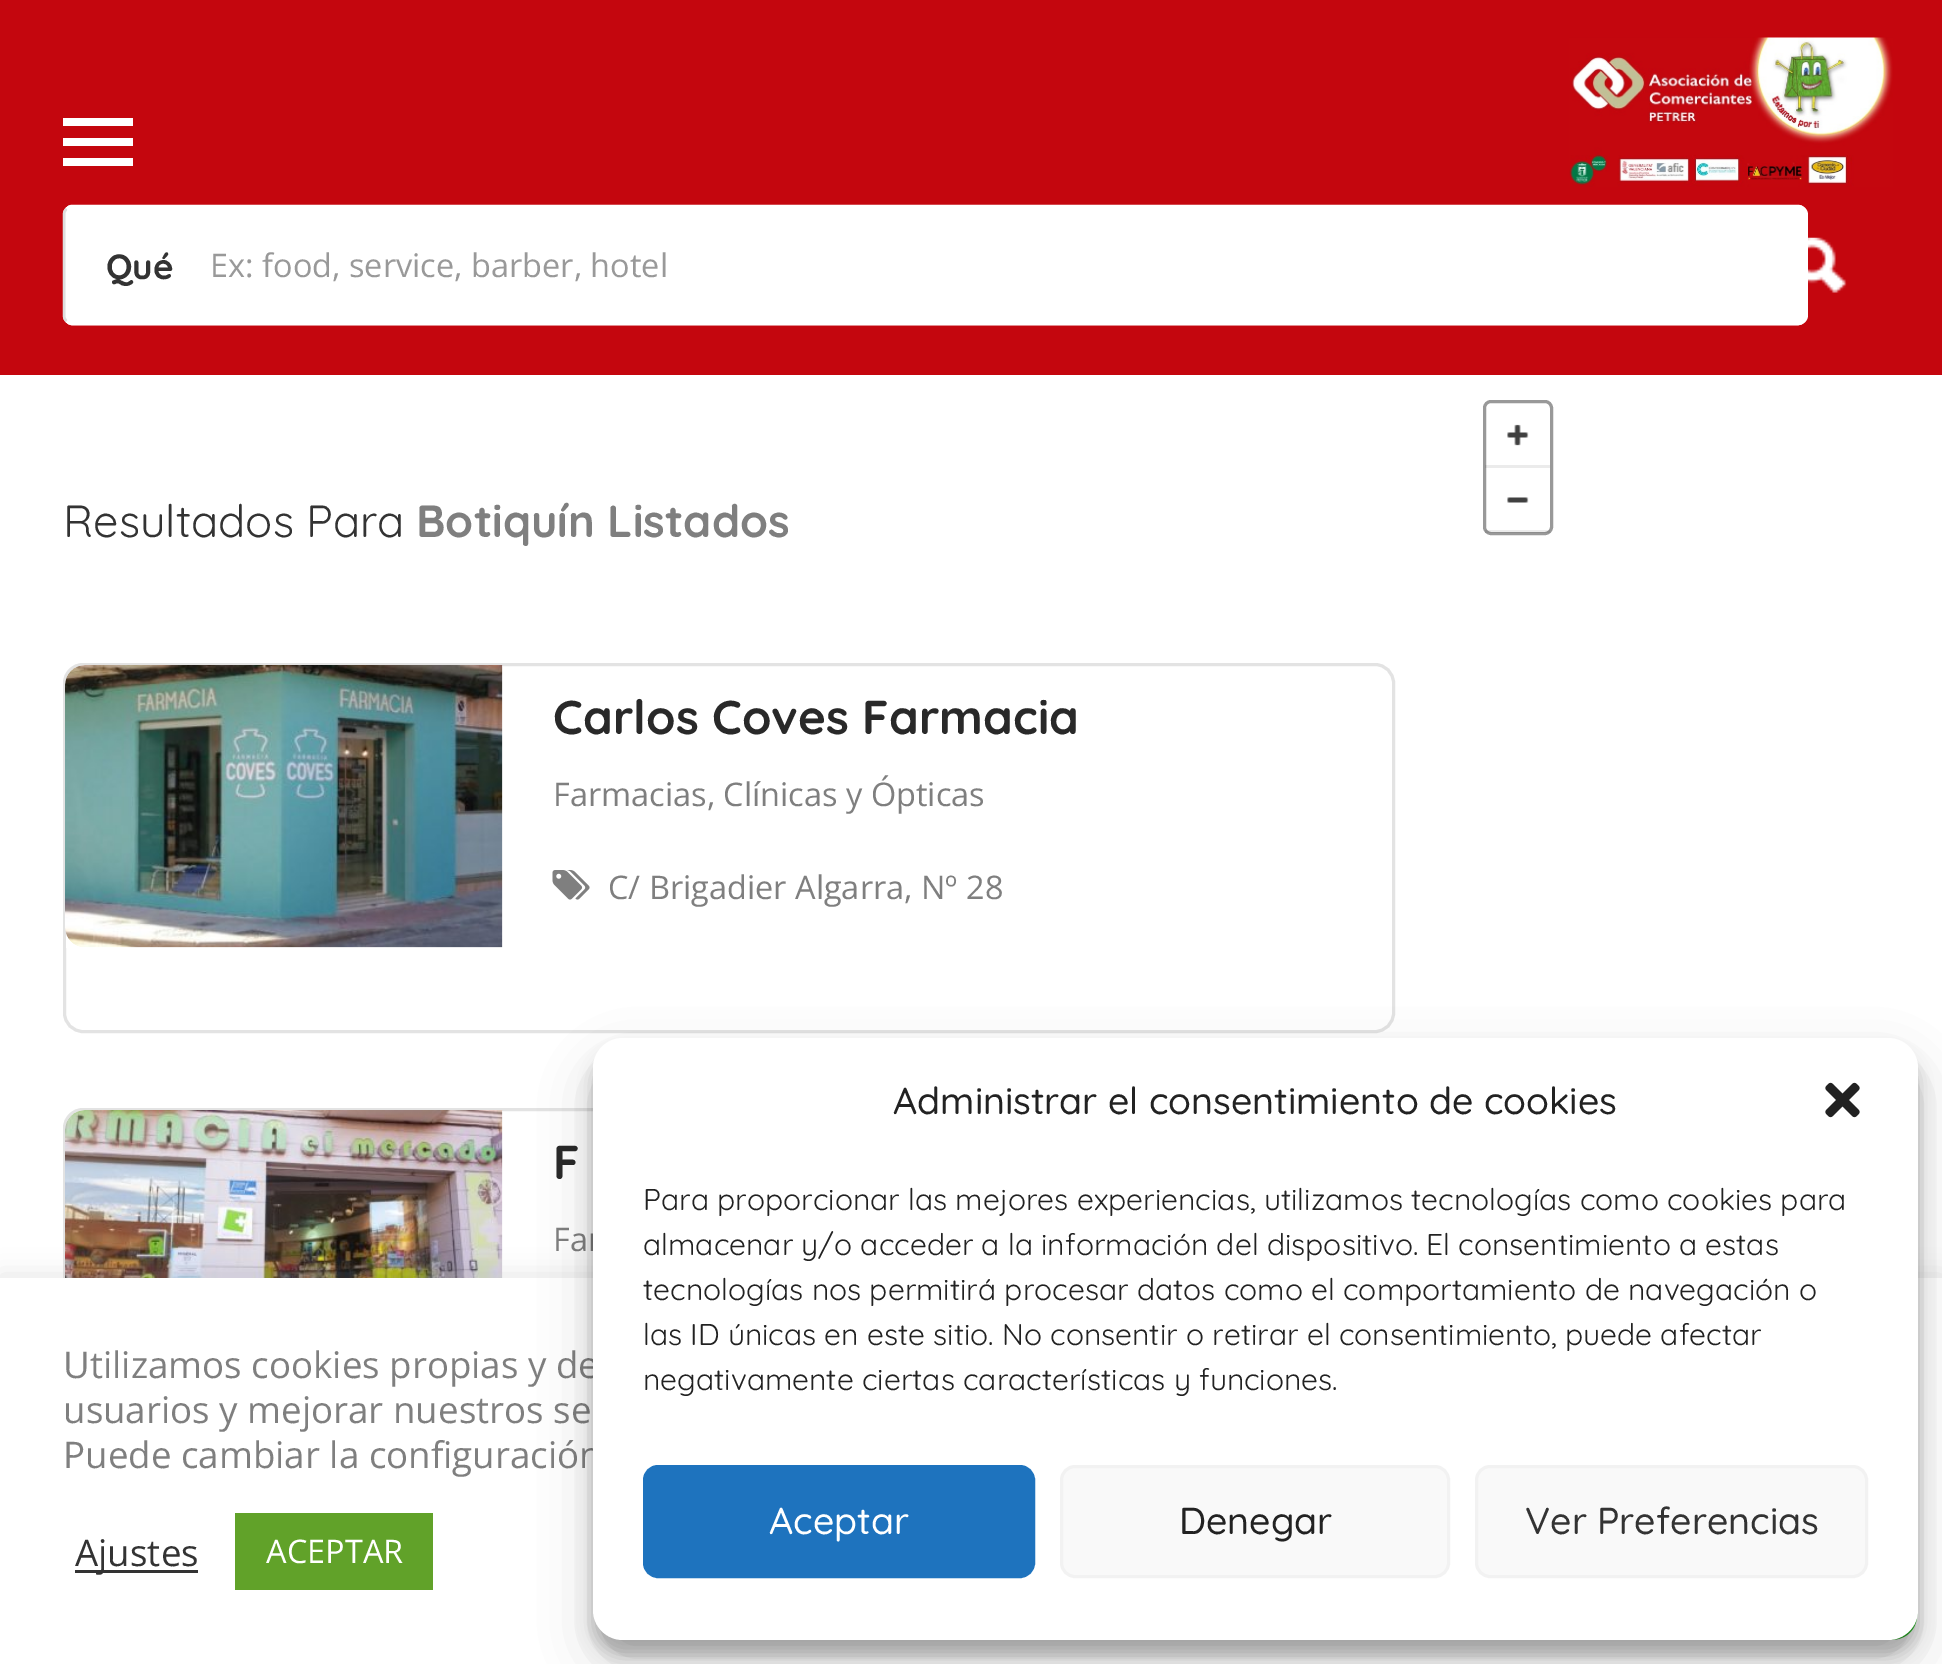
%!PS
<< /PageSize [1942 1664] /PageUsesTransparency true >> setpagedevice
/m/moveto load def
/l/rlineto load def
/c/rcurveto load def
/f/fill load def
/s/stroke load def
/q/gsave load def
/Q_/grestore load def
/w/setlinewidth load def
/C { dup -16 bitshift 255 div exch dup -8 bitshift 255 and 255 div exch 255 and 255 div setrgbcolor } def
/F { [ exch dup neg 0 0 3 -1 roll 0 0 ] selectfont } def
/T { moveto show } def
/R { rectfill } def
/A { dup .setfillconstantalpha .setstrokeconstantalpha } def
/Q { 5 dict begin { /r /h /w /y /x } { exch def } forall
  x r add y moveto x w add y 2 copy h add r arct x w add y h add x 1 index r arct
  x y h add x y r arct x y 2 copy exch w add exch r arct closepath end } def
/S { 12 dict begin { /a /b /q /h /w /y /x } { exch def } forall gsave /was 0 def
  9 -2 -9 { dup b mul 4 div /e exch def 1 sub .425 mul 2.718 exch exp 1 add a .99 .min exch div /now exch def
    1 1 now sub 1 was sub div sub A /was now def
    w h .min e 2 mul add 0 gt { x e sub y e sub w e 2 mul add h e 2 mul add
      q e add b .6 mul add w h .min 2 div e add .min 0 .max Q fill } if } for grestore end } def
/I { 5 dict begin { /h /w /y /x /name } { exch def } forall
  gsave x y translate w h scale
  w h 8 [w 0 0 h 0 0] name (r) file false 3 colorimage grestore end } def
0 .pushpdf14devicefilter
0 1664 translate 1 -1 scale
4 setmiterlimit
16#FFFFFF C
0 0 1942 1664 R
16#C4060E C
0 0 1942 375 R
(1.rgb) 1569 37 324 150 I
16#FFFFFF C
63 118 70 8 R
63 138 70 8 R
63 158 70 8 R
63 205 1745 120 10 Q f
2.5 w
66.5 209 m 1.5 -2 3.5 -3 6 -3 c 1725 0 l 2.5 0 4.5 1 6 3 c 2 1.5 2.5 3.5 2.5 6 c 0 100 l 0 2.5 -.5 4.5 -2.5 6 c -1.5 2 -3.5 3 -6 3 c -1725 0 l -2.5 0 -4.5 -1 -6 -3 c s
16#DEDEDE C
66.5 321 m -2 -1.5 -2.5 -3.5 -2.5 -6 c 0 -100 l 0 -2.5 .5 -4.5 2.5 -6 c s
/Quicksand-Bold 35 F
16#333333 C
(Qué) 106 279 T
/OpenSans-Regular 32.5 F
16#999999 C
(Ex: food, service, barber, hotel) 210 277 T
(2.rgb) 1808 237 39 56 I
3 w
1484.5 401.5 67 132 6.5 Q s
(3.rgb) 1507 424 22 22 I
0.08 A
16#000000 C
1485 465 65 3 R
1 A
(4.rgb) 1507 497 22 6 I
0.08 A
1485 530 65 3 R
/Quicksand-Regular 45 F
1 A
16#333333 C
(Resultados Para) 63 537 T
/Quicksand-Bold 45 F
16#7F7F7F C
(Botiquín Listados) 416 537 T
16#E3E3E3 C
64.5 664.5 1329 367 18.5 Q s
(5.rgb) 65 665 438 283 I
/Quicksand-Bold 47.5 F
16#292929 C
(Carlos Coves Farmacia) 553 734 T
/OpenSans-Regular 32.5 F
16#7F7F7F C
(Farmacias, Clínicas y Ópticas) 553 806 T
(6.rgb) 552 870 38 30 I
(C/ Brigadier Algarra, Nº 28) 608 899 T
16#E3E3E3 C
64.5 1109.5 1329 367 18.5 Q s
(7.rgb) 65 1110 438 168 I
/Quicksand-Bold 47.5 F
16#292929 C
(F) 553 1179 T
/OpenSans-Regular 32.5 F
16#7F7F7F C
(Far) 553 1251 T
16#ACABAB C
0 1275 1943 388 0 12.5 .3 S
16#FFFFFF C
0 1278 1942 386 R
/OpenSans-Regular 36.7 F
16#7F7F7F C
(Utilizamos cookies propias y de) 63 1378 T
(usuarios y mejorar nuestros se) 63 1423 T
(Puede cambiar la configuración) 63 1468 T
16#333333 C
75 1570 123 3 R
(Ajustes) 75 1566 T
16#61A229 C
235 1513 198 77 R
/OpenSans-Regular 32.5 F
16#FFFFFF C
(ACEPTAR) 266 1563 T
(8.rgb) 1888 1610 30 30 I
16#000000 C
593 1053 1325 602 30 7.5 .23 S
593 1063 1325 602 30 25 .19 S
16#FFFFFF C
593 1038 1325 602 30 Q f
/Quicksand-Medium 37.5 F
16#222222 C
(Administrar el consentimiento de cookies) 893 1114 T
(9.rgb) 1825 1082 35 36 I
/Quicksand-Regular 30 F
(Para proporcionar las mejores experiencias, utilizamos tecnologías como cookies para) 643 1210 T
(almacenar y/o acceder a la información del dispositivo. El consentimiento a estas) 643 1255 T
(tecnologías nos permitirá procesar datos como el comportamiento de navegación o) 643 1300 T
(las ID únicas en este sitio. No consentir o retirar el consentimiento, puede afectar) 643 1345 T
(negativamente ciertas características y funciones.) 643 1390 T
16#1E73BE C
644.5 1466.5 389 110 13.5 Q q f Q_
s
/Quicksand-Medium 37.5 F
16#FFFFFF C
(Aceptar) 769 1534 T
16#F9F9F9 C
1061.5 1466.5 387 110 13.5 Q q f Q_
16#F2F2F2 C
s
16#222222 C
(Denegar) 1179 1534 T
16#F9F9F9 C
1476.5 1466.5 390 110 13.5 Q q f Q_
16#F2F2F2 C
s
16#333333 C
(Ver Preferencias) 1525 1534 T
.poppdf14devicefilter showpage
